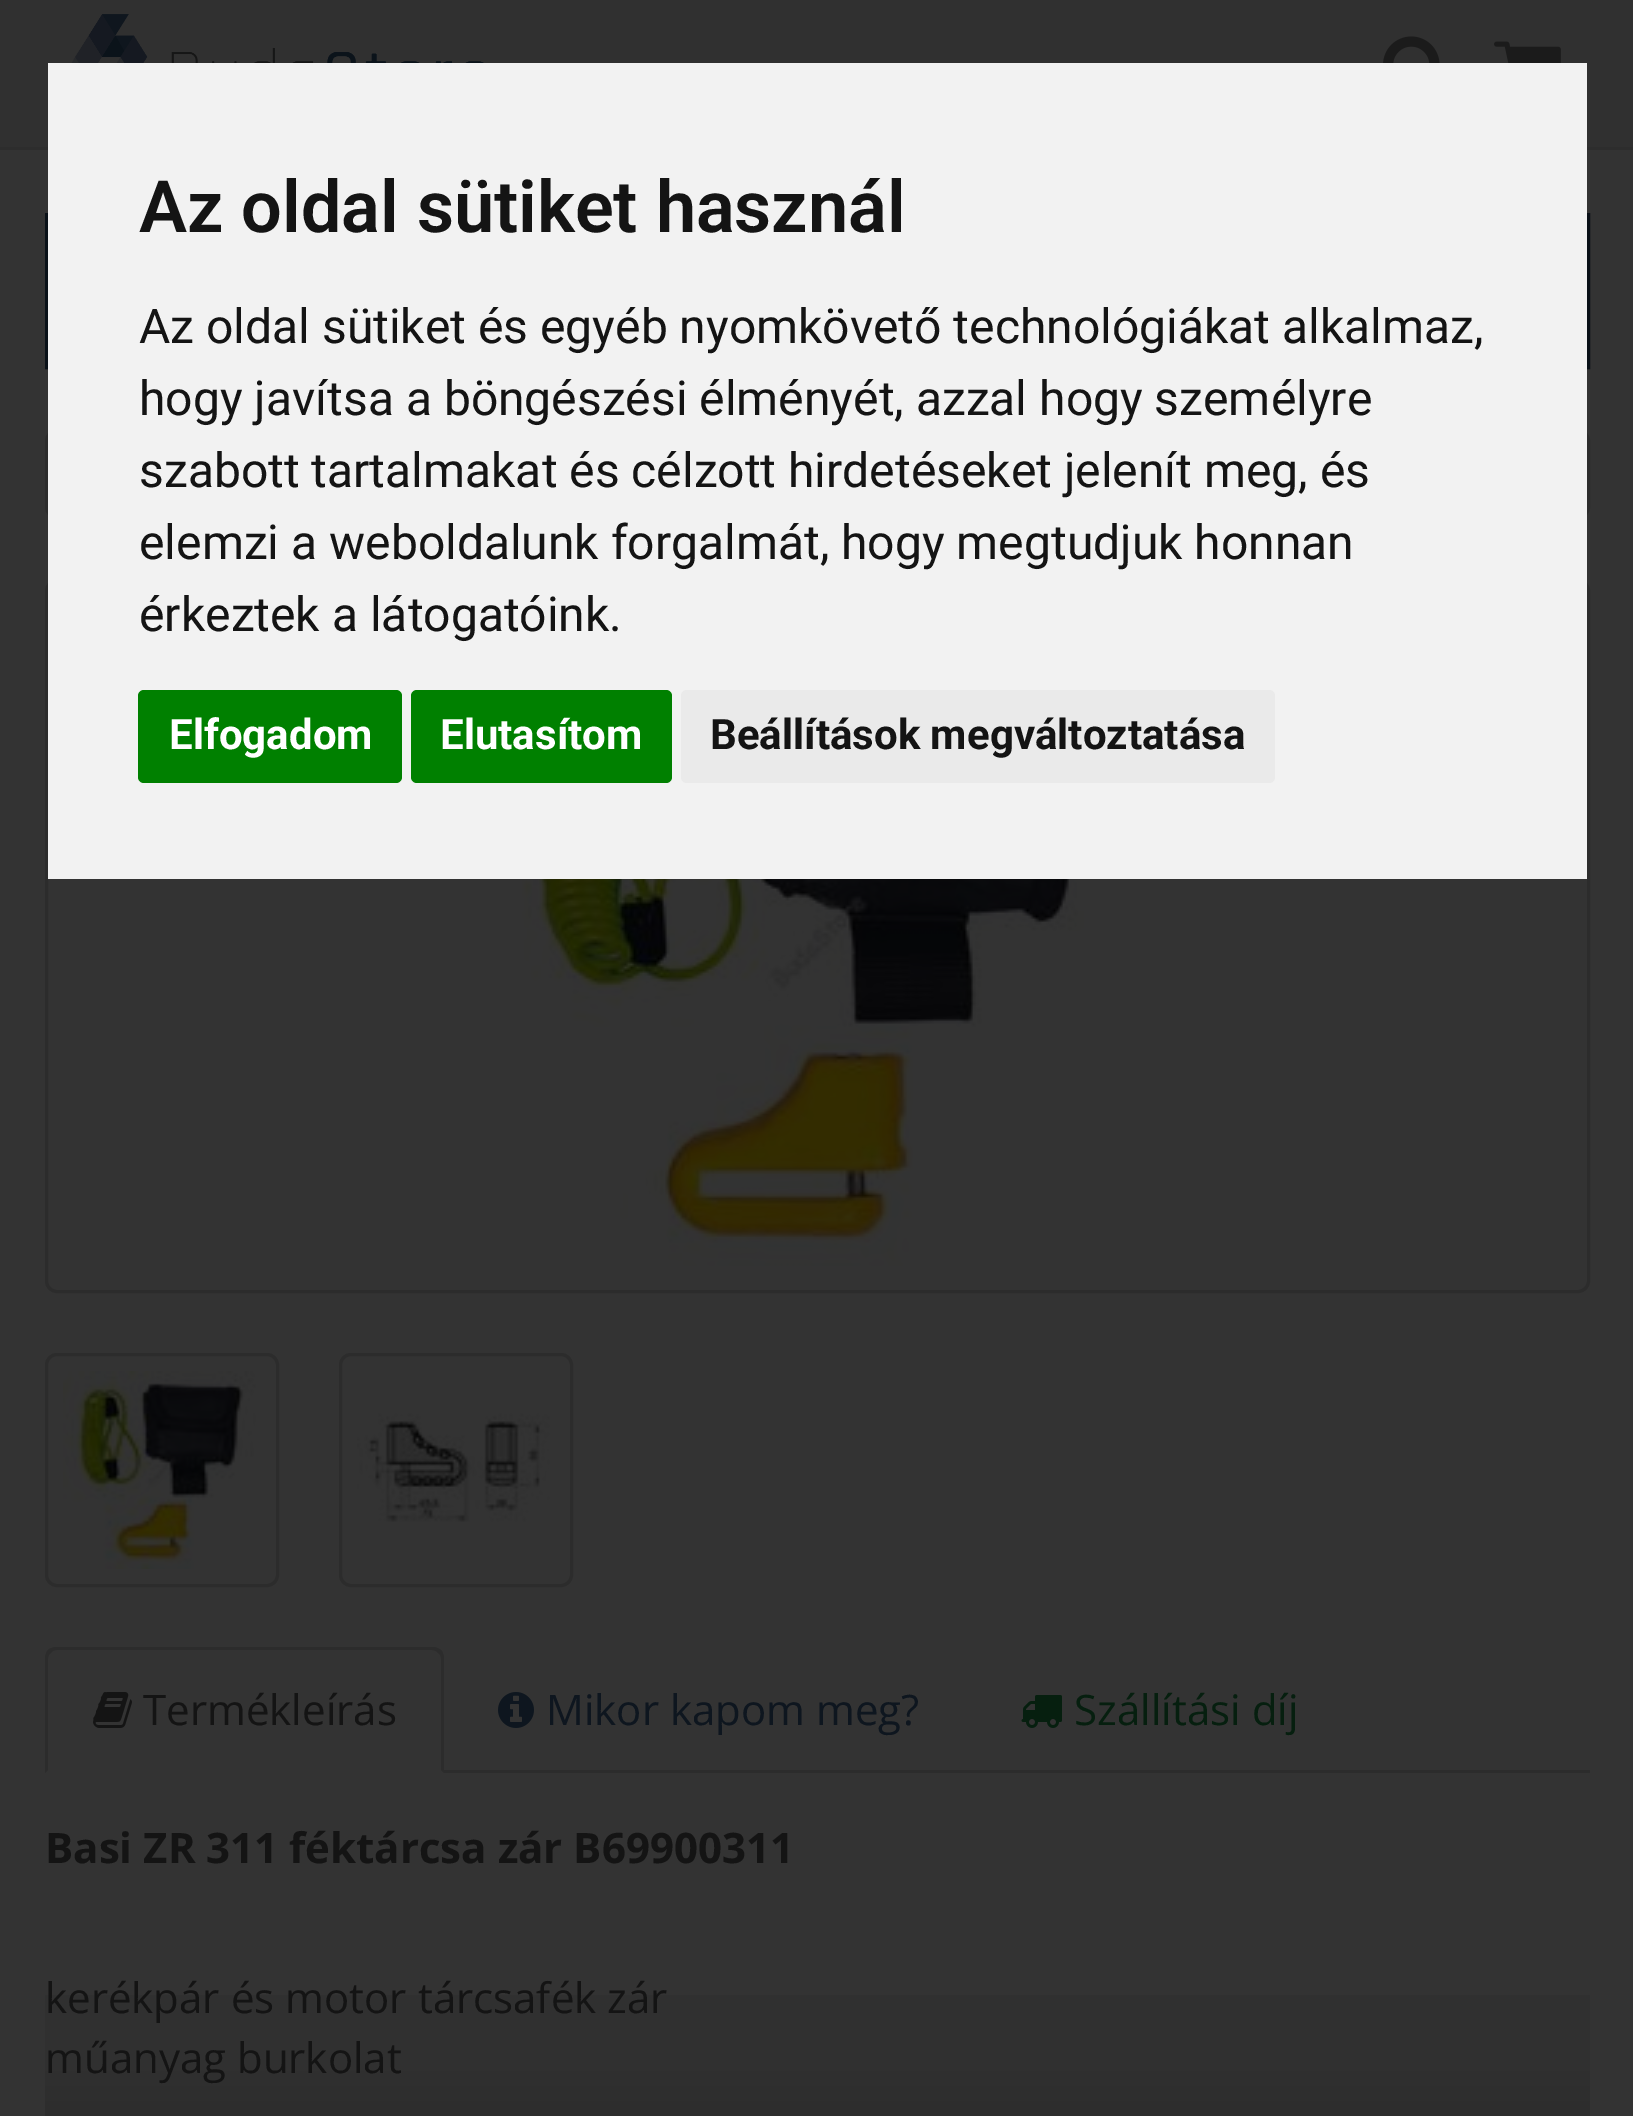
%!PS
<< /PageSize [1633 2116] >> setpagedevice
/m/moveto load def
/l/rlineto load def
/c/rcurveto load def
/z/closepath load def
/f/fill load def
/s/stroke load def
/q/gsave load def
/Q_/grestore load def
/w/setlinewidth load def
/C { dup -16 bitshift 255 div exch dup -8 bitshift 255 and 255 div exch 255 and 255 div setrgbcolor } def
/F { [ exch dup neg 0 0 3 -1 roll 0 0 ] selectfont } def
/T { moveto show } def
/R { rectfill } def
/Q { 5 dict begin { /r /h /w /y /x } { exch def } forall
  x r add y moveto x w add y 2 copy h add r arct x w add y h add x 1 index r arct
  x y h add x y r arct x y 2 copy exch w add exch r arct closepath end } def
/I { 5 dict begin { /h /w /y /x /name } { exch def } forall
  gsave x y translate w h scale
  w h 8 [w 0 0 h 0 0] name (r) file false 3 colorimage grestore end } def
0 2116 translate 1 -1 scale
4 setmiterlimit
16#333333 C
0 0 1633 2116 R
16#303030 C
0 0 1633 147 R
16#2D2D2D C
0 147 1633 3 R
(1.rgb) 71 14 413 49 I
(2.rgb) 1383 36 57 27 I
(3.rgb) 1494 41 67 22 I
16#0A1118 C
3 w
46.5 214.5 1542 153 rectstroke
16#2C2C2C C
46.5 430.5 1542 87 10.5 Q s
46.5 580.5 1542 711 10.5 Q s
16#F2F2F2 C
48 63 1539 816 R
/Roboto-SemiBold 72 F
16#141414 C
(Az oldal sütiket használ) 139 232 T
/Roboto-Regular 48 F
(Az oldal sütiket és egyéb nyomkövető technológiákat alkalmaz,) 139 343 T
(hogy javítsa a böngészési élményét, azzal hogy személyre) 139 415 T
(szabott tartalmakat és célzott hirdetéseket jelenít meg, és) 139 487 T
(elemzi a weboldalunk forgalmát, hogy megtudjuk honnan) 139 559 T
(érkeztek a látogatóink.) 139 631 T
16#008000 C
138 690 264 93 6 Q f
/Roboto-Bold 42 F
16#FFFFFF C
(Elfogadom) 169 749 T
16#008000 C
411 690 261 93 6 Q f
16#FFFFFF C
(Elutasítom) 440 749 T
16#EAEAEA C
681 690 594 93 6 Q f
16#141414 C
(Beállítások megváltoztatása) 710 749 T
(4.rgb) 522 879 580 387 I
16#2C2C2C C
46.5 1354.5 231 231 10.5 Q s
(5.rgb) 63 1371 193 198 I
340.5 1354.5 231 231 10.5 Q s
(6.rgb) 357 1413 193 109 I
444 1770 1146 3 R
57 1647 m -3 0 -7 1 -9 3 c 3 3 l 1 -2 3 -3 6 -3 c 375 0 l 2 0 5 1 6 3 c 3 -3 l -3 -2 -5 -3 -9 -3 c z f
444 1773 m 0 -114 l 0 -3 -1 -7 -3 -9 c -3 3 l 2 1 3 3 3 6 c 0 111 l z f
45 1773 m 3 -3 l 0 -111 l 0 -3 1 -5 3 -6 c -3 -3 l -2 2 -3 6 -3 9 c z f
(7.rgb) 93 1692 39 36 I
/OpenSans-Regular 42 F
16#141414 C
(Termékleírás) 143 1725 T
(8.rgb) 498 1692 36 36 I
16#0E161F C
(Mikor kapom meg?) 546 1725 T
(9.rgb) 1021 1695 41 33 I
16#061F0F C
(Szállítási díj) 1074 1725 T
q 45 1995 m 1545 0 l 0 121 l -1545 0 l z clip newpath
<< /ShadingType 2 /ColorSpace /DeviceRGB /Coords [818 1818 818 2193] /Extend [true true] /Function << /FunctionType 3 /Domain [0 1] /Functions [<< /FunctionType 2 /Domain [0 1] /C0 [.2 .2 .2] /C1 [.2 .2 .2] /N 1 >> << /FunctionType 2 /Domain [0 1] /C0 [.2 .2 .2] /C1 [.2 .2 .2] /N 1 >> << /FunctionType 2 /Domain [0 1] /C0 [.2 .2 .2] /C1 [.188 .188 .188] /N 1 >> << /FunctionType 2 /Domain [0 1] /C0 [.188 .188 .188] /C1 [.188 .188 .188] /N 1 >> << /FunctionType 2 /Domain [0 1] /C0 [.188 .188 .188] /C1 [.173 .173 .173] /N 1 >> << /FunctionType 2 /Domain [0 1] /C0 [.173 .173 .173] /C1 [.145 .145 .145] /N 1 >>] /Bounds [.17 .33 .5 .67 .83] /Encode [0 1 0 1 0 1 0 1 0 1 0 1] >> >> shfill Q_
/OpenSans-Bold 42 F
16#141414 C
(Basi ZR 311 féktárcsa zár B69900311) 45 1863 T
/OpenSans-Regular 42 F
(kerékpár és motor tárcsafék zár) 45 2013 T
(műanyag burkolat) 45 2073 T
showpage
